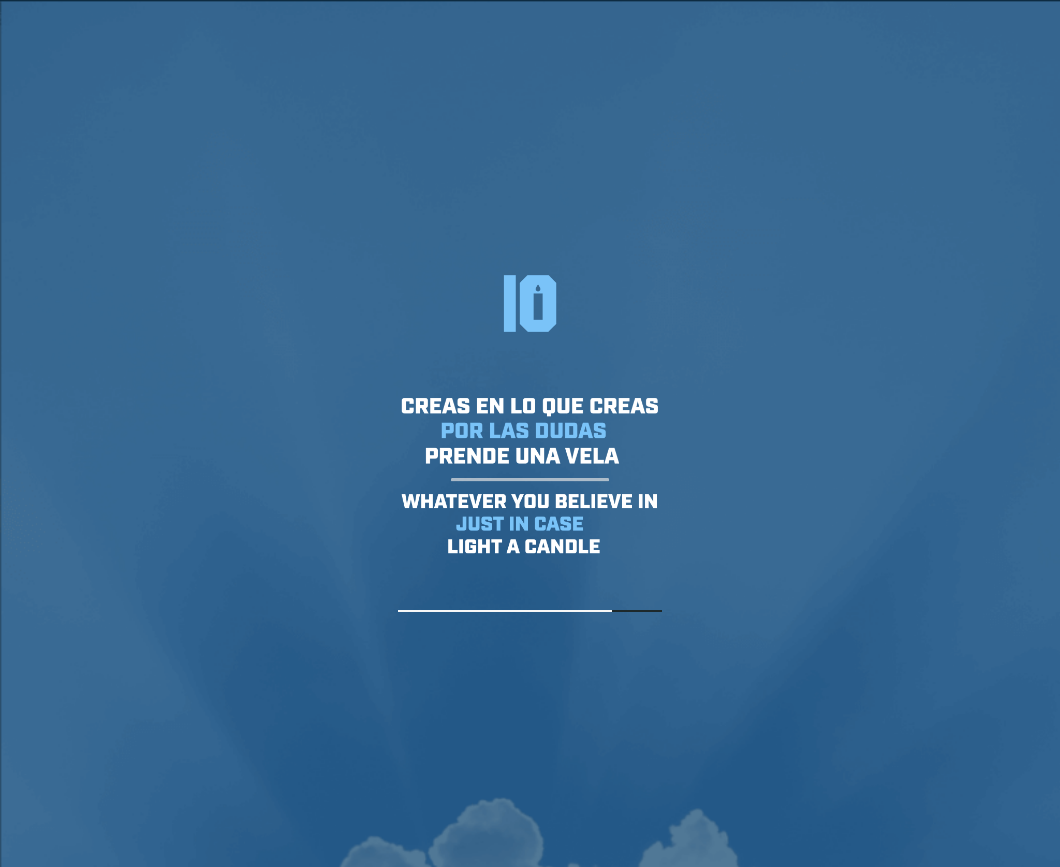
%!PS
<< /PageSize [1060 867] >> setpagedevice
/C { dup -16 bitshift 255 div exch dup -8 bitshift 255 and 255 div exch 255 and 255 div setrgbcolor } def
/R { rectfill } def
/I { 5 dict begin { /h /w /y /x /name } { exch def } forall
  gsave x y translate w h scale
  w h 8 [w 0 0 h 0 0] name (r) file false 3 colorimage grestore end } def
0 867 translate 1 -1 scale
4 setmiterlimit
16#000000 C
0 0 1060 867 R
(1.rgb) 0 0 1060 867 I
(2.rgb) 401 275 257 279 I
16#1D292C C
612 610 50 2 R
16#F7F7F7 C
398 610 214 2 R
showpage
